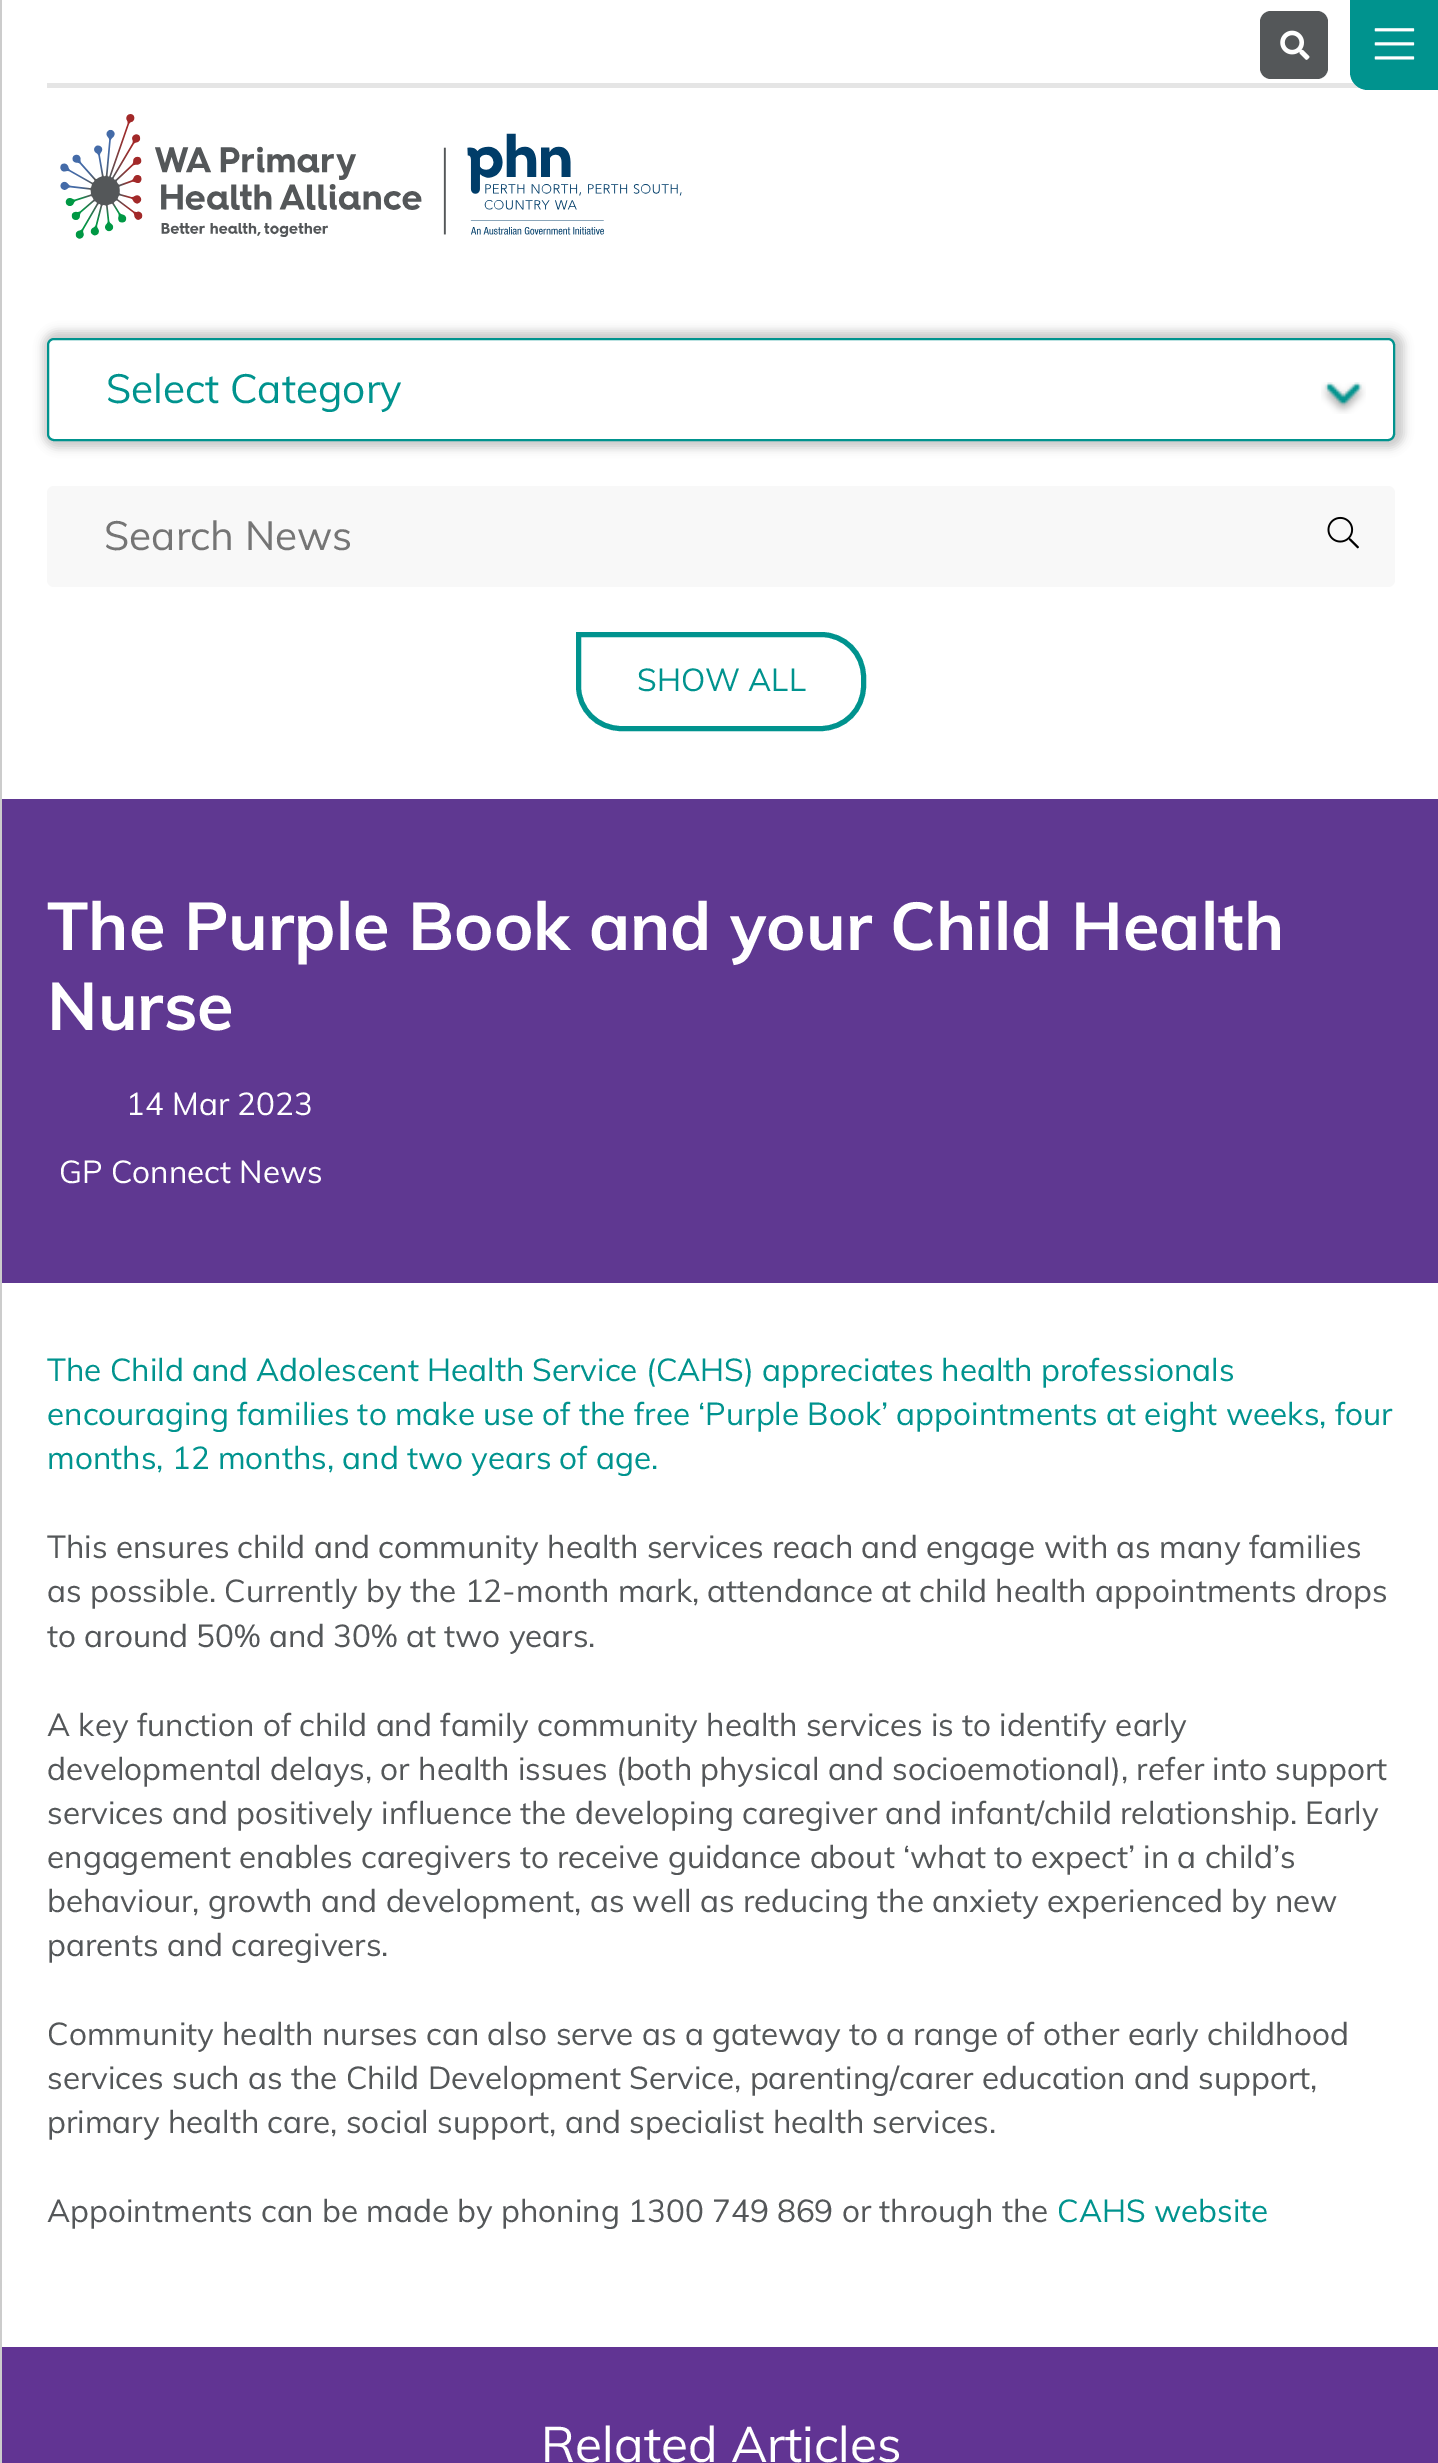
%!PS
<< /PageSize [1438 2463] /PageUsesTransparency true >> setpagedevice
/m/moveto load def
/l/rlineto load def
/c/rcurveto load def
/z/closepath load def
/f/fill load def
/s/stroke load def
/q/gsave load def
/Q_/grestore load def
/w/setlinewidth load def
/C { dup -16 bitshift 255 div exch dup -8 bitshift 255 and 255 div exch 255 and 255 div setrgbcolor } def
/F { [ exch dup neg 0 0 3 -1 roll 0 0 ] selectfont } def
/T { moveto show } def
/R { rectfill } def
/A { dup .setfillconstantalpha .setstrokeconstantalpha } def
/Q { 5 dict begin { /r /h /w /y /x } { exch def } forall
  x r add y moveto x w add y 2 copy h add r arct x w add y h add x 1 index r arct
  x y h add x y r arct x y 2 copy exch w add exch r arct closepath end } def
/S { 12 dict begin { /a /b /q /h /w /y /x } { exch def } forall gsave /was 0 def
  9 -2 -9 { dup b mul 4 div /e exch def 1 sub .425 mul 2.718 exch exp 1 add a .99 .min exch div /now exch def
    1 1 now sub 1 was sub div sub A /was now def
    w h .min e 2 mul add 0 gt { x e sub y e sub w e 2 mul add h e 2 mul add
      q e add b .6 mul add w h .min 2 div e add .min 0 .max Q fill } if } for grestore end } def
/I { 5 dict begin { /h /w /y /x /name } { exch def } forall
  gsave x y translate w h scale
  w h 8 [w 0 0 h 0 0] name (r) file false 3 colorimage grestore end } def
0 .pushpdf14devicefilter
0 2463 translate 1 -1 scale
4 setmiterlimit
16#FFFFFF C
0 0 1438 2463 R
16#CCCCCC C
0 0 2 2463 R
16#E5E5E5 C
47 83 1313 5 R
16#545759 C
1260 11 68 68 11 Q f
(1.rgb) 1280 30 30 30 I
16#00938E C
1350 0 m 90 0 l 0 90 l -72 0 l -10 0 -18 -8 -18 -18 c z f
(2.rgb) 1374 28 41 32 I
(3.rgb) 60 114 622 125 I
q
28 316 m 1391 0 l 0 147 l -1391 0 l z 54 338 m 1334 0 l 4 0 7 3 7 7 c 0 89 l 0 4 -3 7 -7 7 c -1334 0 l -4 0 -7 -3 -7 -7 c 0 -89 l 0 -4 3 -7 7 -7 c z eoclip newpath
16#000000 C
43 331 1361 117 14 4.5 .2 S
Q_
(4.rgb) 1321 382 45 32 I
2 w
48 339 1346 101 6 Q s
/Muli-Regular 40.5 F
(Select Category) 106 403 T
16#F8F8F8 C
47 486 1348 101 7 Q f
16#757575 C
(Search News) 104 550 T
(5.rgb) 1327 516 32 33 I
16#00938E C
5 w
578.5 634.5 m 242.5 0 l 23.5 0 42.5 19 42.5 42.5 c 0 9 l 0 23.5 -19 42.5 -42.5 42.5 c -200 0 l -23.5 0 -42.5 -19 -42.5 -42.5 c z s
/Muli-Regular 31.5 F
(SHOW ALL) 637 691 T
16#5F3891 C
2 799 1436 484 R
/Muli-Bold 66.9 F
16#FFFFFF C
(The Purple Book and your Child Health) 47 950 T
(Nurse) 47 1030 T
/Muli-Regular 31.5 F
(14 Mar 2023) 126 1115 T
(GP Connect News) 59 1183 T
16#00938E C
(The Child and Adolescent Health Service \(CAHS\) appreciates health professionals) 47 1381 T
(encouraging families to make use of the free ‘Purple Book’ appointments at eight weeks, four) 47 1425 T
(months, 12 months, and two years of age.) 47 1469 T
16#545759 C
(This ensures child and community health services reach and engage with as many families) 47 1558 T
(as possible. Currently by the 12-month mark, attendance at child health appointments drops) 47 1602 T
(to around 50% and 30% at two years.) 47 1647 T
(A key function of child and family community health services is to identify early) 47 1736 T
(developmental delays, or health issues \(both physical and socioemotional\), refer into support) 47 1780 T
(services and positively influence the developing caregiver and infant/child relationship. Early) 47 1824 T
(engagement enables caregivers to receive guidance about ‘what to expect’ in a child’s) 47 1868 T
(behaviour, growth and development, as well as reducing the anxiety experienced by new) 47 1912 T
(parents and caregivers.) 47 1956 T
(Community health nurses can also serve as a gateway to a range of other early childhood) 47 2045 T
(services such as the Child Development Service, parenting/carer education and support,) 47 2089 T
(primary health care, social support, and specialist health services.) 47 2133 T
(Appointments can be made by phoning 1300 749 869 or through the) 47 2222 T
16#00938E C
(CAHS website) 1057 2222 T
16#613493 C
2 2347 1436 116 R
/Muli-Regular 49.5 F
16#FFFFFF C
(Related Articles) 541 2462 T
.poppdf14devicefilter showpage
